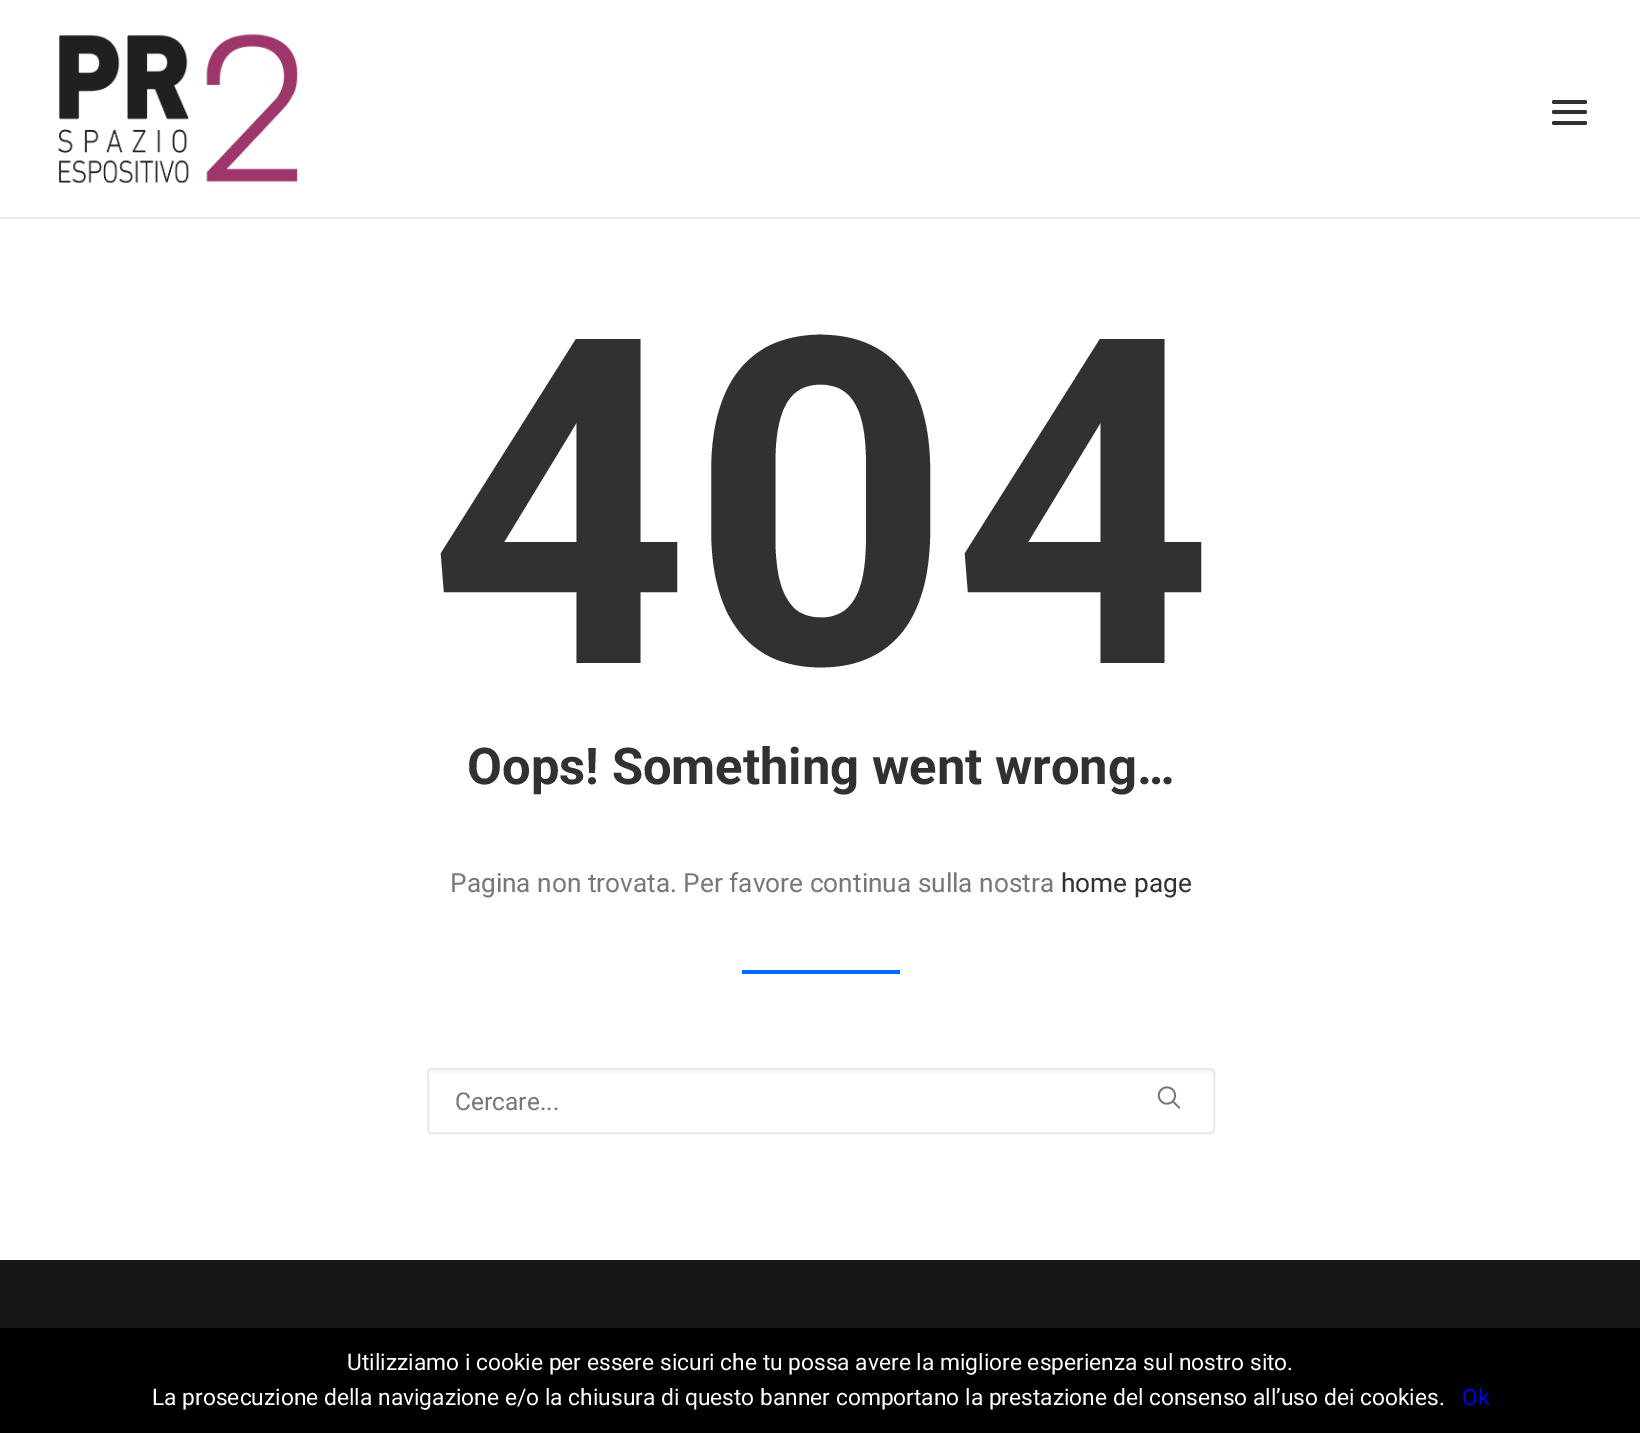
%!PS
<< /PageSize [1640 1433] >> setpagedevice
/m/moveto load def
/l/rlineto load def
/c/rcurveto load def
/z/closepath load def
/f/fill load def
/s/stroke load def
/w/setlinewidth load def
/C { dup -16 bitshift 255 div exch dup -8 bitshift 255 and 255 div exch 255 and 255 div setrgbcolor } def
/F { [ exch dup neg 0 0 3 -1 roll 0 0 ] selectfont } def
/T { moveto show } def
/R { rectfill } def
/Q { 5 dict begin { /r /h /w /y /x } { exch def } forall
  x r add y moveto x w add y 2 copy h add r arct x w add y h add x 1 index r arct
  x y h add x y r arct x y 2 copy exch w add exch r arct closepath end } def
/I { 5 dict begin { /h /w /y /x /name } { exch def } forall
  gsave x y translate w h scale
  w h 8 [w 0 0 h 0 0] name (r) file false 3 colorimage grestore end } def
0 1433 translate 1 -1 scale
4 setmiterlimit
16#141618 C
0 0 1640 1433 R
16#FFFFFF C
0 0 1640 217 R
16#EAEAEA C
0 217 1640 2 R
(1.rgb) 58 34 240 149 I
16#303133 C
1552 110 35 4 2 Q f
1552 100 35 4 2 Q f
1552 121 35 4 2 Q f
16#FFFFFF C
0 219 1640 1041 R
/Roboto-Bold 457 F
16#303133 C
(404) 428 663 T
/Roboto-Bold 50.75 F
(Oops! Something went wrong…) 467 784 T
/Roboto-Regular 26.25 F
16#777777 C
(Pagina non trovata. Per favore continua sulla nostra) 450 892 T
16#303133 C
(home page) 1061 892 T
16#006CFF C
742 970 158 4 R
16#F9F9F9 C
430 1073 m 781 0 l 2 1 l 0 -4 l -1 -1 l -781 0 l -3 0 -2 3 -2 5 c z f
16#EAEAEA C
2 w
428 1069 786 64 3 Q s
/Roboto-Regular 24.5 F
16#777777 C
(Cercare...) 455 1110 T
(2.rgb) 1157 1086 24 23 I
16#000000 C
0 1328 1640 105 R
/Roboto-Regular 22.75 F
16#FFFFFF C
(Utilizziamo i cookie per essere sicuri che tu possa avere la migliore esperienza sul nostro sito.) 347 1370 T
(La prosecuzione della navigazione e/o la chiusura di questo banner comportano la prestazione del consenso all’uso dei cookies.) 152 1405 T
16#0000EE C
(Ok) 1462 1405 T
showpage
